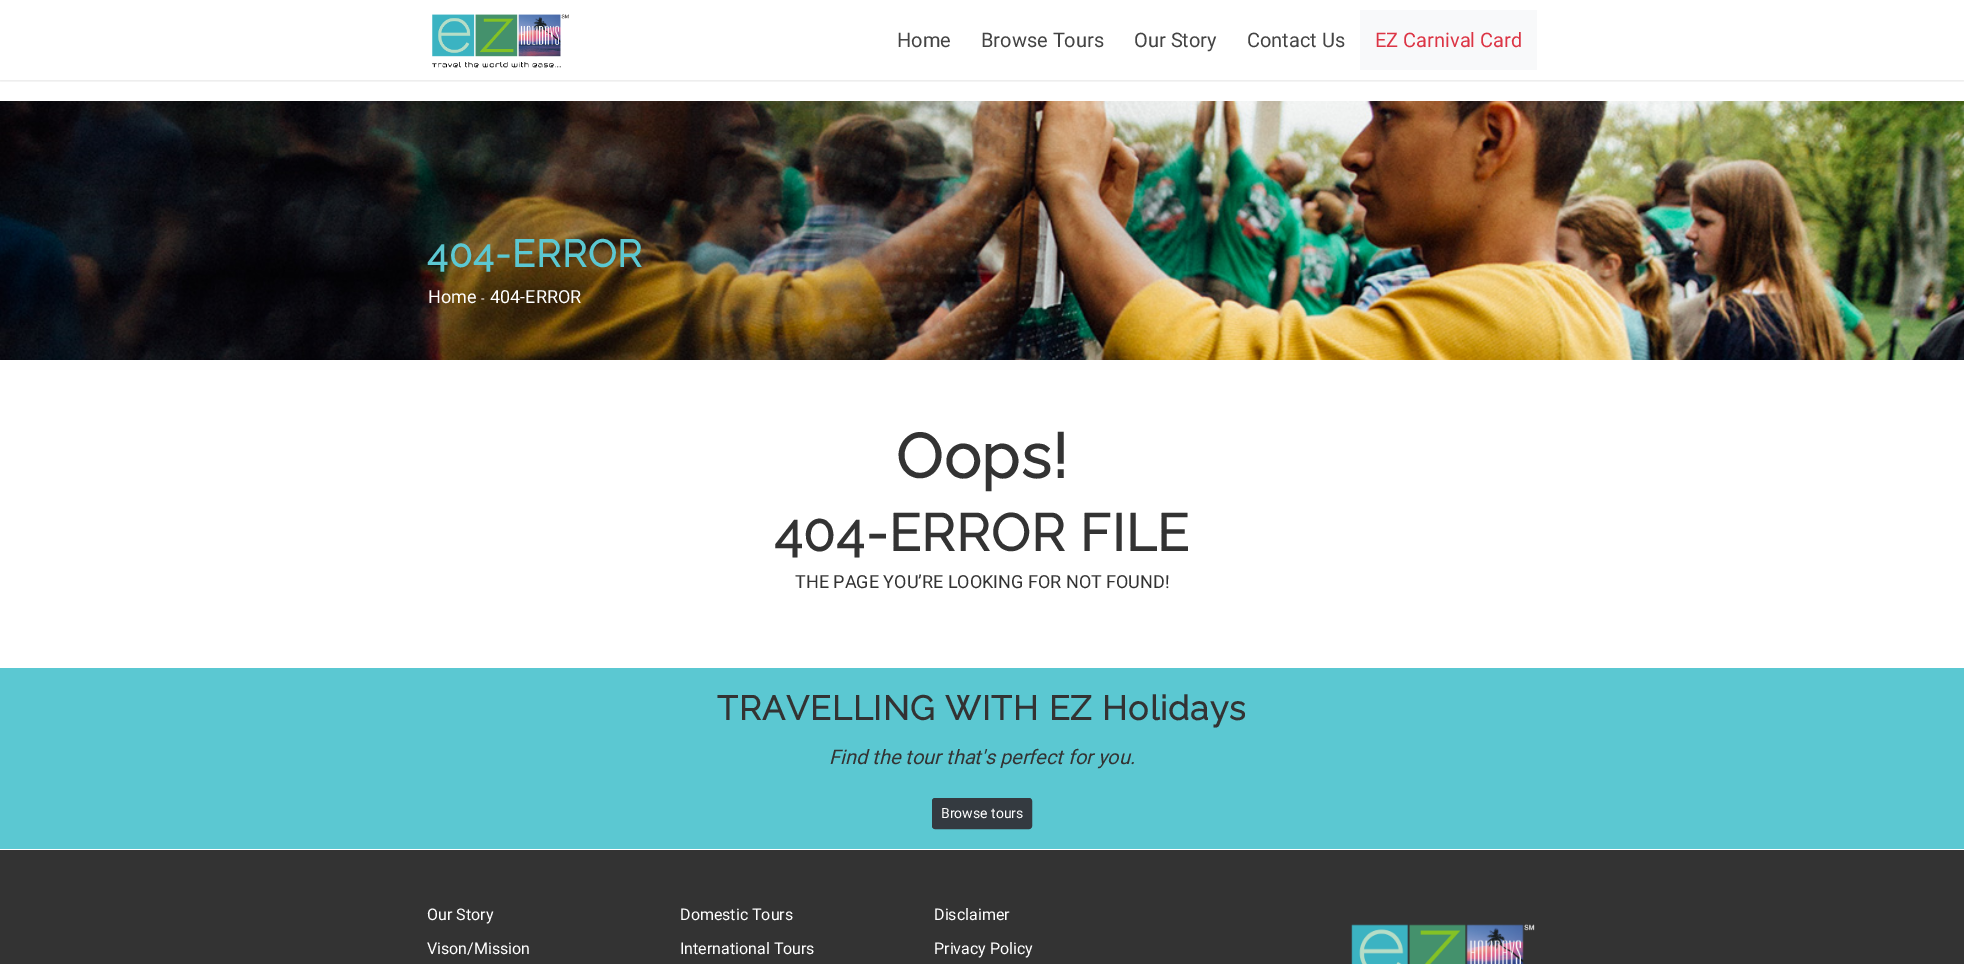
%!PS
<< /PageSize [1964 964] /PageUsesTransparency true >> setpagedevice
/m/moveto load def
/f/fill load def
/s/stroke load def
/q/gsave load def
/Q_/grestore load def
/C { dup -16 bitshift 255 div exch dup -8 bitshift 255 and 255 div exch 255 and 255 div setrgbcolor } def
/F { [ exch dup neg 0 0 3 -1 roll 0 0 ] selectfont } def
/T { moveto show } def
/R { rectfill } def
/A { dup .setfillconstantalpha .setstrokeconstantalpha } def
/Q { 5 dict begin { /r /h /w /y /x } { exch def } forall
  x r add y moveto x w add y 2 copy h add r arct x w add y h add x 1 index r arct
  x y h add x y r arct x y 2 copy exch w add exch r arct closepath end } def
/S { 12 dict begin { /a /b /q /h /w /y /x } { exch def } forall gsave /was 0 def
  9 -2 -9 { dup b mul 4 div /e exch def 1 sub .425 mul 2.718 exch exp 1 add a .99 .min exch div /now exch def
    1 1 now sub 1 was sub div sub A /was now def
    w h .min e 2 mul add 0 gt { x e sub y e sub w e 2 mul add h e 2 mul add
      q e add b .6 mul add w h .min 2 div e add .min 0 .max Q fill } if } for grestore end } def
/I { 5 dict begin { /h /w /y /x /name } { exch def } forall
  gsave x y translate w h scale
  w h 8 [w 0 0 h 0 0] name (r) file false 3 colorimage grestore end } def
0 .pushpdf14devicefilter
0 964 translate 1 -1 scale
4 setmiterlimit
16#FFFFFF C
0 0 1964 964 R
q
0 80 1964 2 rectclip
16#000000 C
0 1 1964 80 0 1.5 .1 S
Q_
(1.rgb) 432 14 137 54 I
/Roboto-Regular 20 F
16#444444 C
(Home) 897 47 T
(Browse Tours) 981 47 T
(Our Story) 1134 47 T
(Contact Us) 1247 47 T
16#F8F9FA C
1360 10 177 60 R
16#DC3545 C
(EZ Carnival Card) 1375 47 T
(2.rgb) 0 101 1964 259 I
/Raleway-Bold 38 F
16#5BC8D2 C
427 267 m 1 0 (404-ERROR) ashow
/Roboto-Regular 18 F
16#FFFFFF C
(Home) 428 303 T
/Roboto-Regular 13 F
(-) 481 303 T
/Roboto-Regular 18 F
(404-ERROR) 490 303 T
/Raleway-Bold 62 F
16#333333 C
896 478 m 1 0 (Oops!) ashow
/Raleway-Bold 52 F
774 551 m 1 0 (404-ERROR FILE) ashow
/Roboto-Regular 18 F
(THE PAGE YOU’RE LOOKING FOR NOT FOUND!) 795 588 T
16#5BC8D2 C
0 668 1964 181 R
/Raleway-Bold 34 F
16#333333 C
717 720 m 1 0 (TRAVELLING WITH EZ Holidays) ashow
/Roboto-Italic 20 F
(Find the tour that's perfect for you.) 829 764 T
16#343A40 C
932.5 798.5 99 30 2.5 Q q f Q_
s
/Roboto-Regular 14 F
16#FFFFFF C
(Browse tours) 941 818 T
16#333333 C
0 850 1964 114 R
/Roboto-Regular 16 F
16#FFFFFF C
(Our Story) 427 920 T
(Vison/Mission) 427 954 T
(Domestic Tours) 680 920 T
(International Tours) 680 954 T
(Disclaimer) 934 920 T
(Privacy Policy) 934 954 T
(3.rgb) 1351 924 184 40 I
.poppdf14devicefilter showpage
